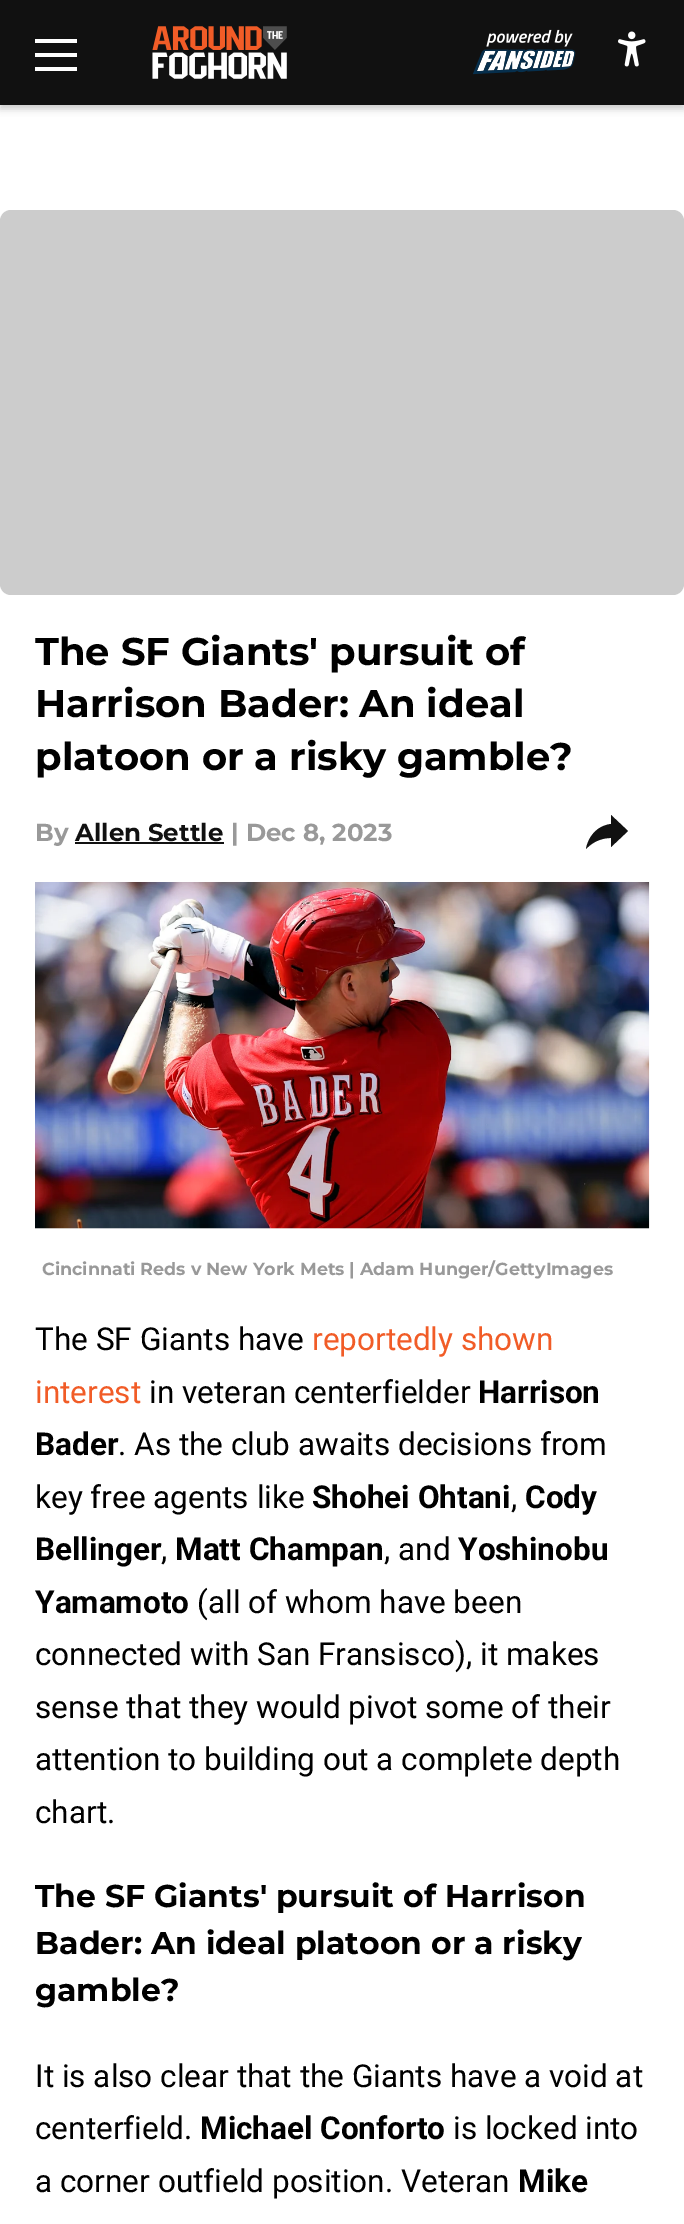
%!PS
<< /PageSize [684 2224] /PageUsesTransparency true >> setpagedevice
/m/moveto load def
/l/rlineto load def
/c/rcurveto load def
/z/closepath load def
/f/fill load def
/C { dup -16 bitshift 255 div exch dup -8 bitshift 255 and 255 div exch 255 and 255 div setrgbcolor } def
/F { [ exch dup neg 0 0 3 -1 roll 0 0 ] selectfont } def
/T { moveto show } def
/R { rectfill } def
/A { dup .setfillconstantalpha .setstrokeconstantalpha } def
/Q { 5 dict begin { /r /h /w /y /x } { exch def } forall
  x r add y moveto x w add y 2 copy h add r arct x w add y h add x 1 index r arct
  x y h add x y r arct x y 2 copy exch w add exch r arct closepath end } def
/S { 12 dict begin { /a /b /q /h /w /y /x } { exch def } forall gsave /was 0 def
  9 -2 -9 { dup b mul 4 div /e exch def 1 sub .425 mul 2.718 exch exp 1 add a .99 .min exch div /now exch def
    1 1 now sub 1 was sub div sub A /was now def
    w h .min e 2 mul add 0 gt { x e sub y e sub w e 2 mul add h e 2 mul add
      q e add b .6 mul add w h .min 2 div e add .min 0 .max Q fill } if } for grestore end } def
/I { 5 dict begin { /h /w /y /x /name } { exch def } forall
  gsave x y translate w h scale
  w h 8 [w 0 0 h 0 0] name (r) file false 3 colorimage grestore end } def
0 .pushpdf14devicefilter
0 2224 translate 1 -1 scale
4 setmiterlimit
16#FFFFFF C
0 0 684 2224 R
16#000000 C
0 4 684 105 0 3.5 .2 S
16#111111 C
0 0 684 105 R
16#FFFFFF C
35 39 42 4 R
35 53 42 4 R
35 67 42 4 R
(1.rgb) 152 26 135 53 I
(2.rgb) 473 29 103 46 I
(3.rgb) 618 31 28 36 I
16#CCCCCC C
0 210 684 385 11 Q f
/Montserrat-Thin 38.5 F
16#000000 C
(The SF Giants' pursuit of) 35 665 T
(Harrison Bader: An ideal) 35 717 T
(platoon or a risky gamble?) 35 770 T
/Montserrat-Thin 24.5 F
16#999999 C
(By) 35 841 T
16#111111 C
(Allen Settle) 75 841 T
75 842 149 2 R
16#999999 C
(| Dec 8, 2023) 231 841 T
16#111111 C
611 847 m 0 -9 l 0 0 -14 -1 -25 11 c 0 0 3 -22 25 -25 c 0 -9 l 17 16 l z f
16#F7F7F7 C
35 1228 614 1 R
(4.rgb) 35 882 615 347 I
/Montserrat-Thin 17.5 F
16#999999 C
(Cincinnati Reds v New York Mets | Adam Hunger/GettyImages) 42 1275 T
/Roboto-Regular 31.5 F
16#000000 C
(The SF Giants have) 35 1350 T
16#F15C27 C
(reportedly shown) 312 1350 T
(interest) 35 1403 T
16#000000 C
(in veteran centerfielder) 149 1403 T
/Roboto-Bold 31.5 F
(Harrison) 478 1403 T
(Bader) 35 1455 T
/Roboto-Regular 31.5 F
(. As the club awaits decisions from) 118 1455 T
(key free agents like) 35 1508 T
/Roboto-Bold 31.5 F
(Shohei Ohtani) 312 1508 T
/Roboto-Regular 31.5 F
(,) 511 1508 T
/Roboto-Bold 31.5 F
(Cody) 525 1508 T
(Bellinger) 35 1560 T
/Roboto-Regular 31.5 F
(,) 161 1560 T
/Roboto-Bold 31.5 F
(Matt Champan) 175 1560 T
/Roboto-Regular 31.5 F
(, and) 384 1560 T
/Roboto-Bold 31.5 F
(Yoshinobu) 458 1560 T
(Yamamoto) 35 1613 T
/Roboto-Regular 31.5 F
(\(all of whom have been) 197 1613 T
(connected with San Fransisco\), it makes) 35 1665 T
(sense that they would pivot some of their) 35 1718 T
(attention to building out a complete depth) 35 1770 T
(chart.) 35 1823 T
/Montserrat-Thin 31.5 F
(The SF Giants' pursuit of Harrison) 35 1907 T
(Bader: An ideal platoon or a risky) 35 1954 T
(gamble?) 35 2001 T
/Roboto-Regular 31.5 F
(It is also clear that the Giants have a void at) 35 2087 T
(centerfield.) 35 2139 T
/Roboto-Bold 31.5 F
(Michael Conforto) 200 2139 T
/Roboto-Regular 31.5 F
(is locked into) 453 2139 T
(a corner outfield position. Veteran) 35 2192 T
/Roboto-Bold 31.5 F
(Mike) 518 2192 T
.poppdf14devicefilter showpage
